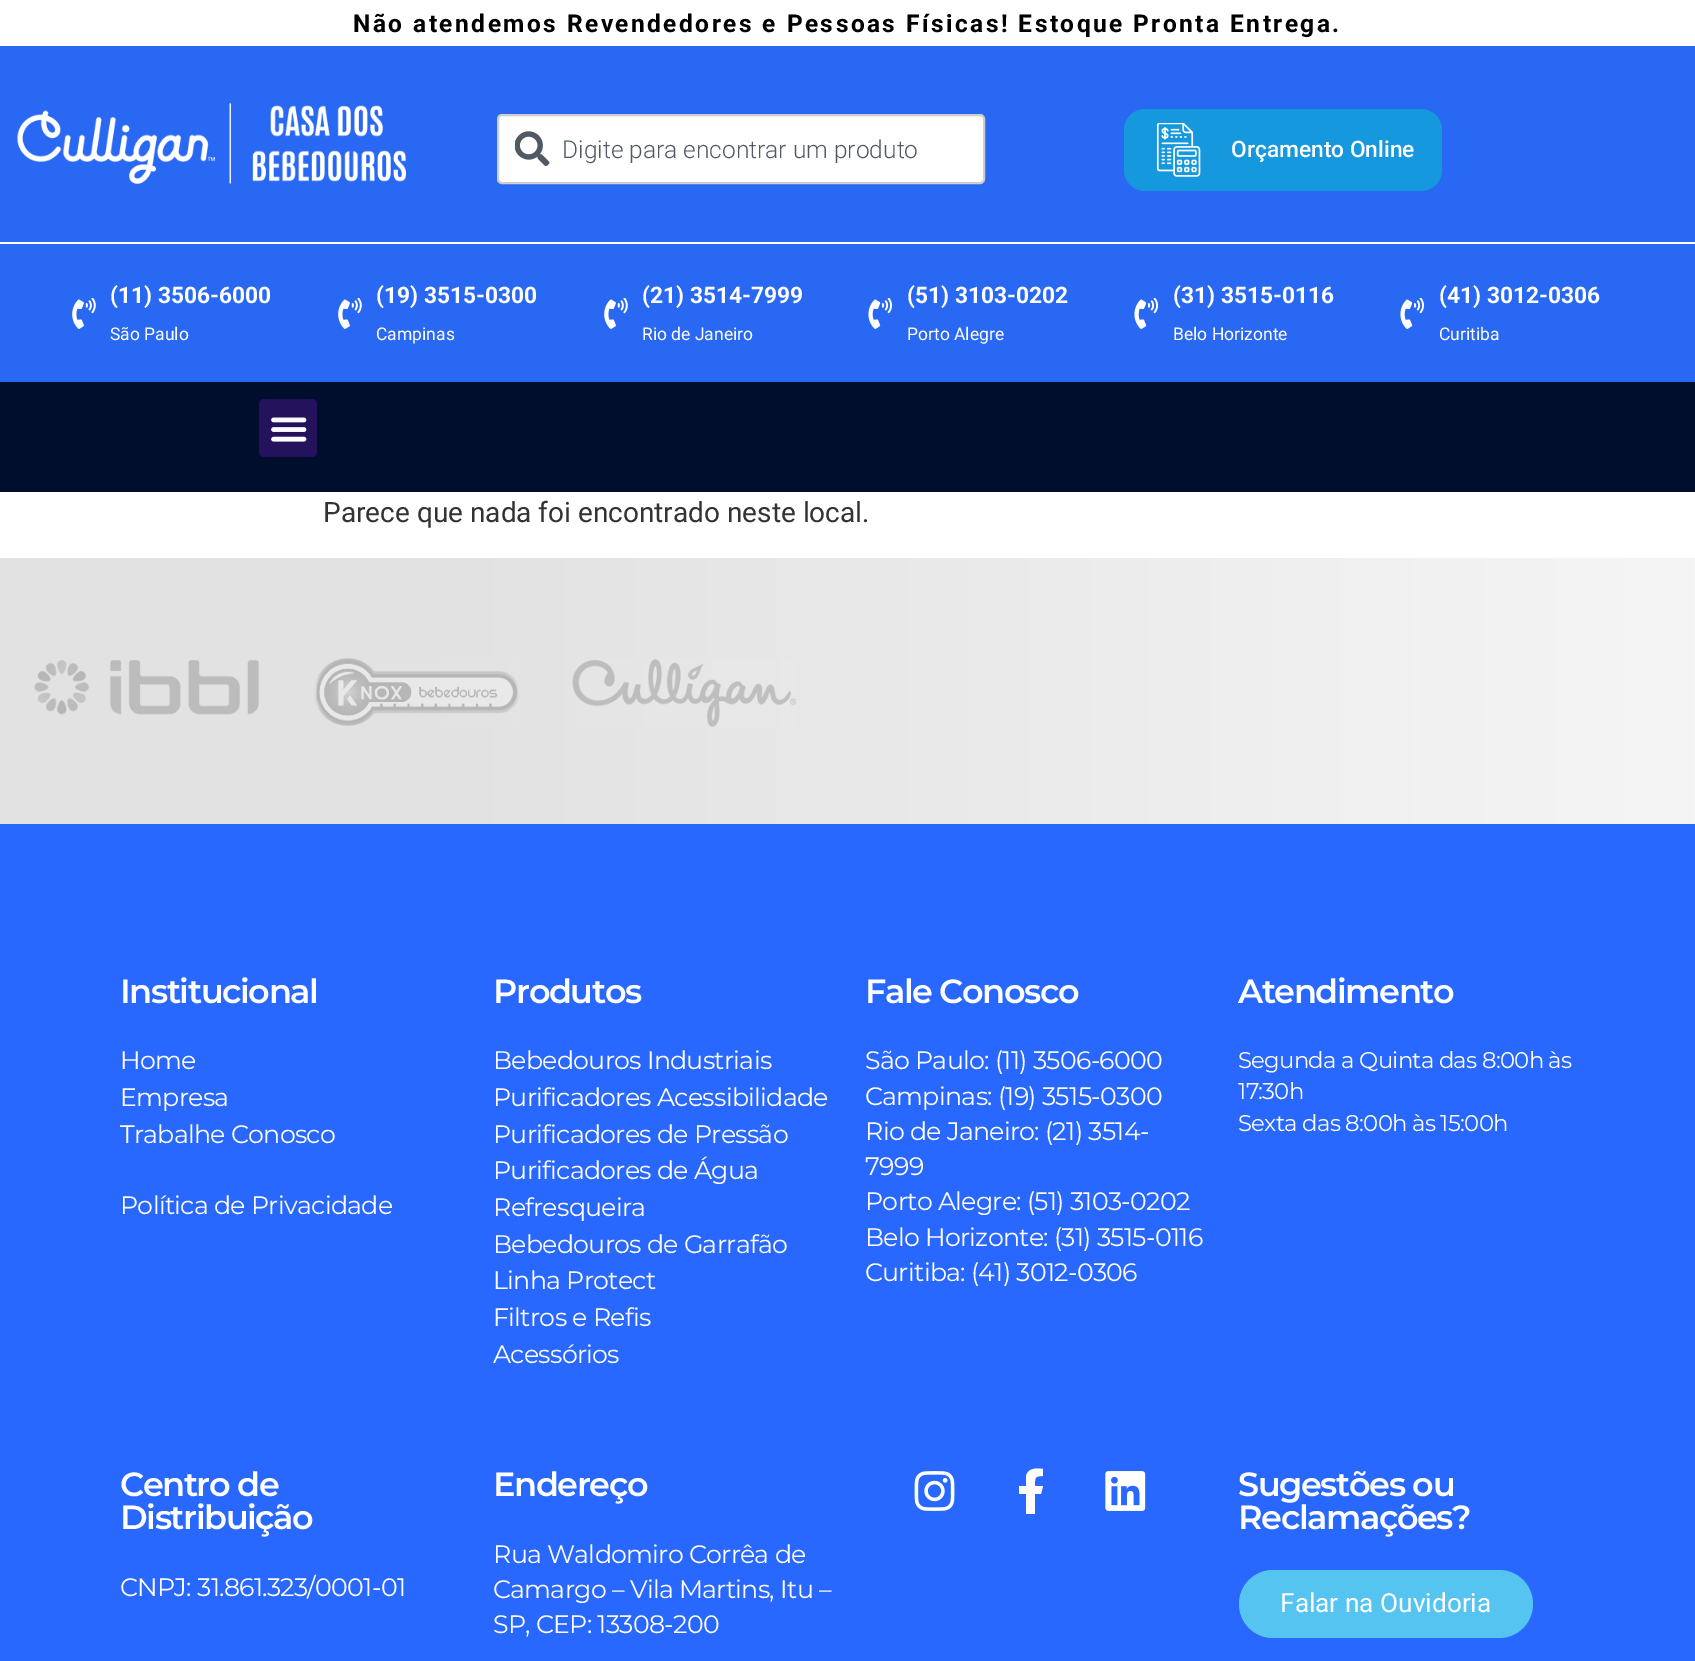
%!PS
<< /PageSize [1695 1661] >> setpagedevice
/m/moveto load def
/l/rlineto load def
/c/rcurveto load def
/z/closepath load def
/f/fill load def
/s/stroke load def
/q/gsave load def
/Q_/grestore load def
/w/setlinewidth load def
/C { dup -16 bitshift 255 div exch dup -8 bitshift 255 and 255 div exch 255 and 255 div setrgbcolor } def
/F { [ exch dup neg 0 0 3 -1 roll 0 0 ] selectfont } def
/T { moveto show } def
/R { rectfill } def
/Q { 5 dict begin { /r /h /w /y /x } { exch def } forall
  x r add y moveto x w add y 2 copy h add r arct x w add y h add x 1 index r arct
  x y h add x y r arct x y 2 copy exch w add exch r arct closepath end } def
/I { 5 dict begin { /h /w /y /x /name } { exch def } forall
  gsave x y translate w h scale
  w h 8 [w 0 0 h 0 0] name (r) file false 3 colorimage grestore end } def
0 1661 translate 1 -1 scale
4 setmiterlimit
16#FFFFFF C
0 0 1695 1661 R
/Roboto-Bold 24.5 F
16#000000 C
353 32 m 2.45 0 (Não atendemos Revendedores e Pessoas Físicas! Estoque Pronta Entrega.) ashow
16#2968F3 C
0 46 1695 196 R
(1.rgb) 17 103 389 81 I
16#FFFFFF C
498 115 486 68 4 Q q f Q_
16#CDCDCD C
2 w
s
(2.rgb) 515 131 35 35 I
/Roboto-Light 24.5 F
16#515962 C
(Digite para encontrar um produto) 562 158 T
16#1598DD C
1124 109 318 82 21 Q f
(3.rgb) 1156 123 45 54 I
/Roboto-Medium 22.75 F
16#FFFFFF C
(Orçamento Online) 1231 157 T
16#2968F3 C
0 244 1695 138 R
(4.rgb) 72 298 24 31 I
/Roboto-Bold 22.75 F
16#FFFFFF C
(\(11\) 3506-6000) 110 303 T
/Roboto-Regular 17.5 F
(São Paulo) 110 340 T
(4.rgb) 338 298 24 31 I
/Roboto-Bold 22.75 F
(\(19\) 3515-0300) 376 303 T
/Roboto-Regular 17.5 F
(Campinas) 376 340 T
(4.rgb) 604 298 24 31 I
/Roboto-Bold 22.75 F
(\(21\) 3514-7999) 642 303 T
/Roboto-Regular 17.5 F
(Rio de Janeiro) 642 340 T
(5.rgb) 868 298 25 31 I
/Roboto-Bold 22.75 F
(\(51\) 3103-0202) 907 303 T
/Roboto-Regular 17.5 F
(Porto Alegre) 907 340 T
(5.rgb) 1134 298 25 31 I
/Roboto-Bold 22.75 F
(\(31\) 3515-0116) 1173 303 T
/Roboto-Regular 17.5 F
(Belo Horizonte) 1173 340 T
(5.rgb) 1400 298 25 31 I
/Roboto-Bold 22.75 F
(\(41\) 3012-0306) 1439 303 T
/Roboto-Regular 17.5 F
(Curitiba) 1439 340 T
16#000E2E C
0 382 1695 110 R
16#24125D C
259 399 58 58 5 Q f
(6.rgb) 271 417 36 25 I
/Roboto-Regular 28 F
16#333333 C
(Parece que nada foi encontrado neste local.) 323 522 T
q 0 558 m 1695 0 l 0 266 l -1695 0 l z clip newpath
<< /ShadingType 2 /ColorSpace /DeviceRGB /Coords [0 691 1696 691] /Extend [true true] /Function << /FunctionType 3 /Domain [0 1] /Functions [<< /FunctionType 2 /Domain [0 1] /C0 [.886 .886 .886] /C1 [.886 .886 .886] /N 1 >> << /FunctionType 2 /Domain [0 1] /C0 [.886 .886 .886] /C1 [.961 .961 .961] /N 1 >>] /Bounds [.24] /Encode [0 1 0 1] >> >> shfill Q_
(7.rgb) 34 660 225 55 I
(8.rgb) 314 658 206 68 I
(9.rgb) 572 659 224 68 I
16#2968FE C
0 824 1695 837 R
/Montserrat-SemiBold 33.5 F
16#FFFFFF C
120 1003 m -1.4 0 (Institucional) ashow
/Montserrat-Regular 25.25 F
120 1069 m -.7 0 (Home) ashow
120 1106 m -.7 0 (Empresa) ashow
120 1143 m -.7 0 (Trabalhe Conosco) ashow
120 1214 m -.7 0 (Política de Privacidade) ashow
/Montserrat-SemiBold 33.5 F
493 1003 m -1.4 0 (Produtos) ashow
/Montserrat-Regular 25.25 F
493 1069 m -.7 0 (Bebedouros Industriais) ashow
493 1106 m -.7 0 (Purificadores Acessibilidade) ashow
493 1143 m -.7 0 (Purificadores de Pressão) ashow
493 1179 m -.7 0 (Purificadores de Água) ashow
493 1216 m -.7 0 (Refresqueira) ashow
493 1253 m -.7 0 (Bebedouros de Garrafão) ashow
493 1289 m -.7 0 (Linha Protect) ashow
493 1326 m -.7 0 (Filtros e Refis) ashow
493 1363 m -.7 0 (Acessórios) ashow
/Montserrat-SemiBold 33.5 F
865 1003 m -1.4 0 (Fale Conosco) ashow
/Montserrat-Regular 25.25 F
865 1069 m -.7 0 (São Paulo: \(11\) 3506-6000) ashow
865 1105 m -.7 0 (Campinas: \(19\) 3515-0300) ashow
865 1140 m -.7 0 (Rio de Janeiro: \(21\) 3514-) ashow
865 1175 m -.7 0 (7999) ashow
865 1210 m -.7 0 (Porto Alegre: \(51\) 3103-0202) ashow
865 1246 m -.7 0 (Belo Horizonte: \(31\) 3515-0116) ashow
865 1281 m -.7 0 (Curitiba: \(41\) 3012-0306) ashow
/Montserrat-SemiBold 33.5 F
1238 1003 m -1.4 0 (Atendimento) ashow
/Montserrat-Regular 22.75 F
1238 1068 m -.7 0 (Segunda a Quinta das 8:00h às) ashow
1238 1099 m -.7 0 (17:30h) ashow
1238 1131 m -.7 0 (Sexta das 8:00h às 15:00h) ashow
/Montserrat-SemiBold 33.5 F
120 1496 m -1.4 0 (Centro de) ashow
120 1529 m -1.4 0 (Distribuição) ashow
/Montserrat-Regular 25.25 F
120 1596 m -.7 0 (CNPJ: 31.861.323/0001-01) ashow
/Montserrat-SemiBold 33.5 F
493 1496 m -1.4 0 (Endereço) ashow
/Montserrat-Regular 25.25 F
493 1563 m -.7 0 (Rua Waldomiro Corrêa de) ashow
493 1598 m -.7 0 (Camargo – Vila Martins, Itu –) ashow
493 1633 m -.7 0 (SP, CEP: 13308-200) ashow
(10.rgb) 914 1471 41 40 I
1041 1494 m 2 -8 l -8 0 l 0 -8 -1 -10 8 -10 c 0 -7 l -7 -1 -16 -1 -17 8 c 0 9 l -7 0 l 0 8 l 7 0 l 0 20 l 9 0 l 0 -20 l z f
(11.rgb) 1105 1471 41 40 I
/Montserrat-SemiBold 33.5 F
1238 1496 m -1.4 0 (Sugestões ou) ashow
1238 1529 m -1.4 0 (Reclamações?) ashow
16#55C4F1 C
1239 1570 294 68 34 Q f
/Roboto-Regular 26.25 F
16#FFFFFF C
(Falar na Ouvidoria) 1280 1612 T
showpage
